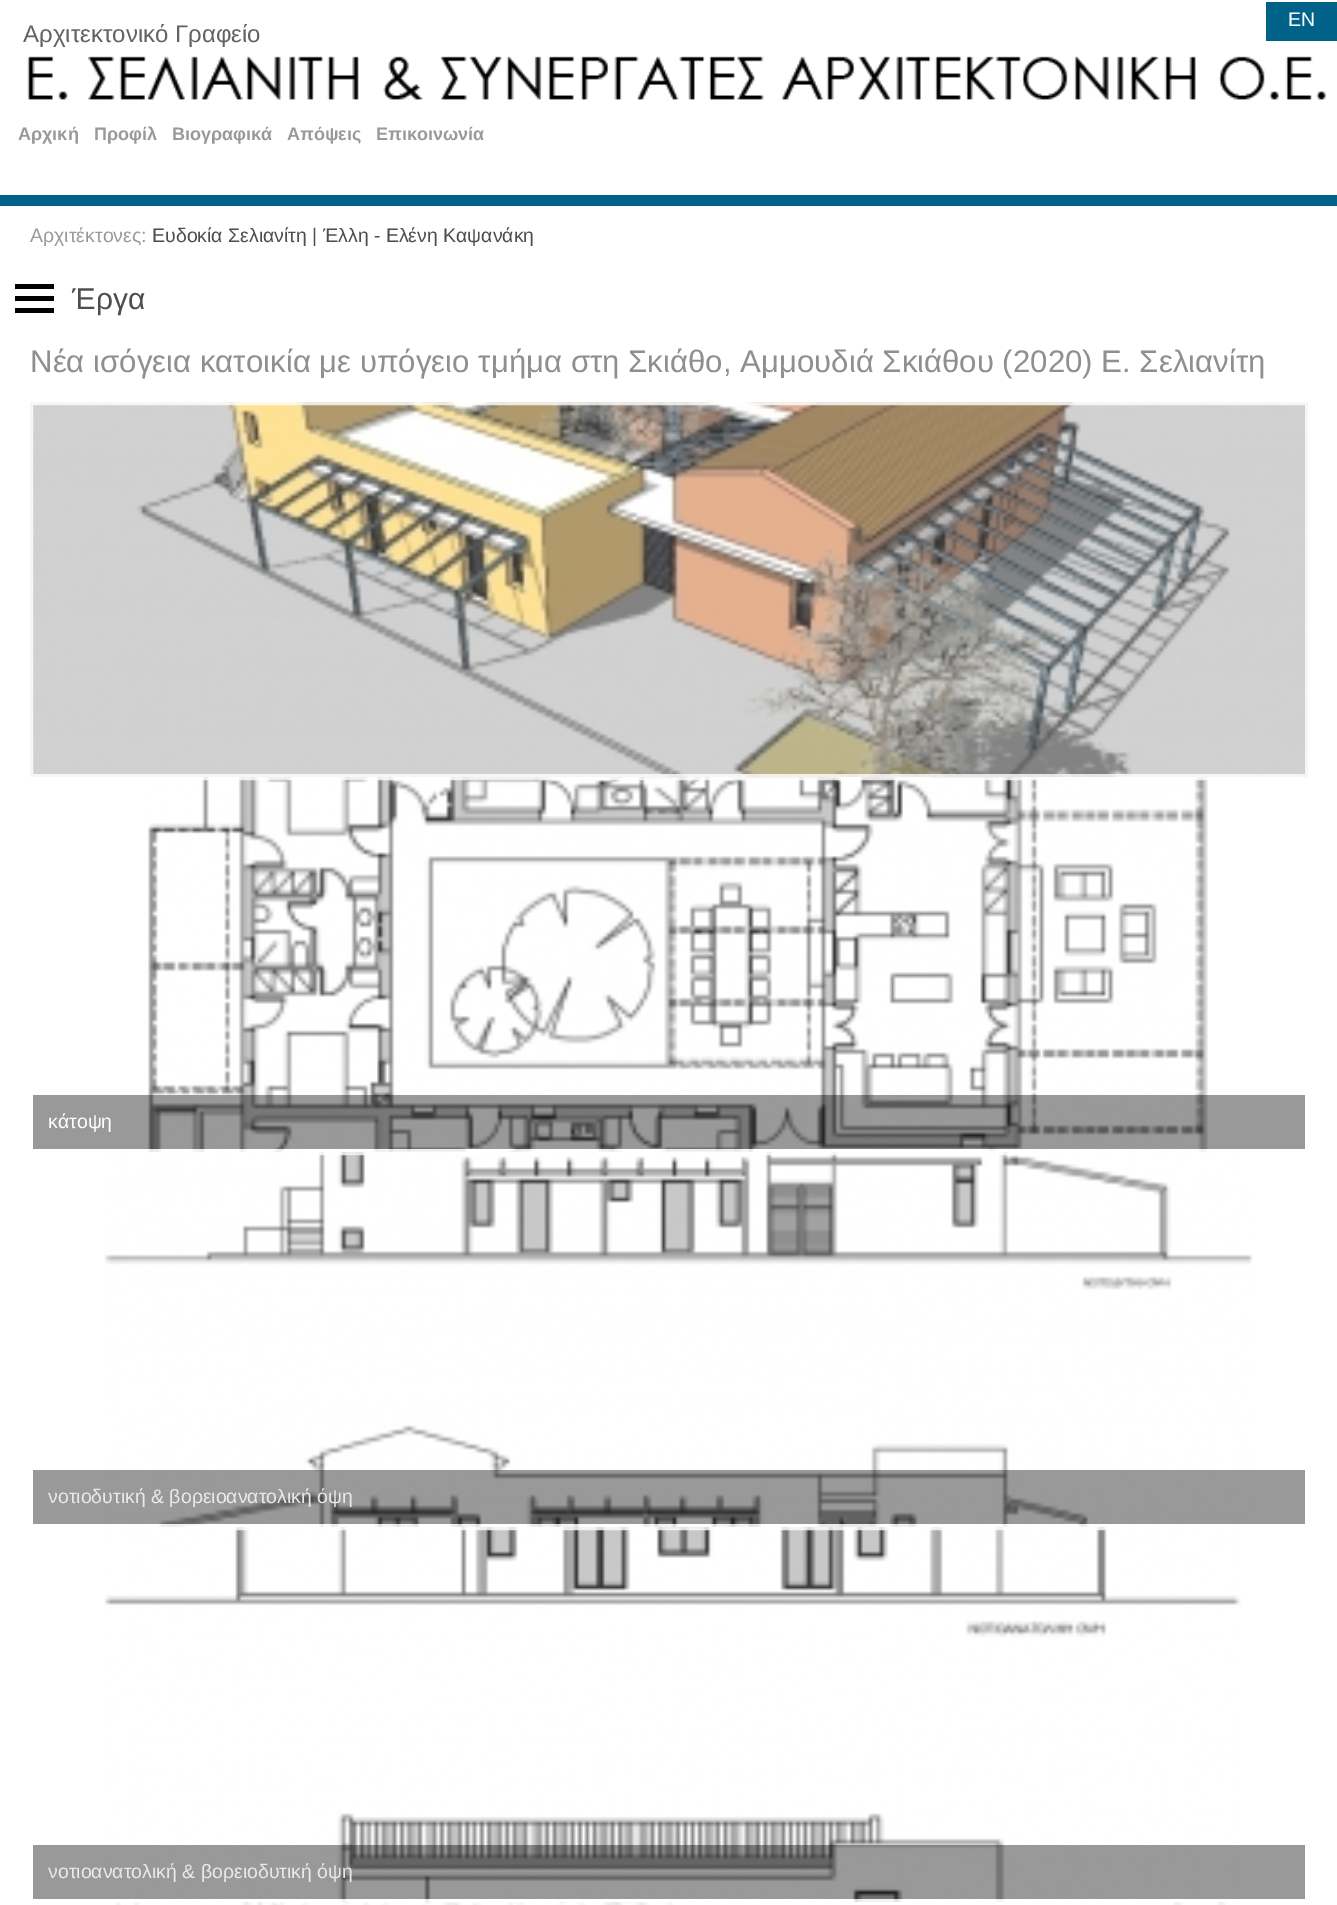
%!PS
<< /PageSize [1337 1905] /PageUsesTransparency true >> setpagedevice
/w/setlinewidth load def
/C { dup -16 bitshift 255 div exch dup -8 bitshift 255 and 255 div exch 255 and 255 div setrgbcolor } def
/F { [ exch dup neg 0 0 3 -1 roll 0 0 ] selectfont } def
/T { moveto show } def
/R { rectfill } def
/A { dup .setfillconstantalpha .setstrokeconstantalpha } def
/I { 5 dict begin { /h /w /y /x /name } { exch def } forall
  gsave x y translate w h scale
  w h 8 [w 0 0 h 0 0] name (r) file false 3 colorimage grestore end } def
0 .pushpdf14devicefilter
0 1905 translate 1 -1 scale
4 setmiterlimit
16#FFFFFF C
0 0 1337 1905 R
16#006289 C
0 195 1337 11 R
1266 2 71 39 R
/LiberationSans-Regular 19.5 F
16#FFFFFF C
(EN) 1288 26 T
(1.rgb) 27 56 1299 44 I
/LiberationSans-Bold 18 F
16#999999 C
(Αρχική) 18 140 T
(Προφίλ) 94 140 T
(Βιογραφικά) 172 140 T
(Απόψεις) 287 140 T
(Επικοινωνία) 376 140 T
/LiberationSans-Regular 24 F
16#636363 C
(Αρχιτεκτονικό Γραφείο) 23 42 T
/LiberationSans-Regular 19.5 F
16#999999 C
(Αρχιτέκτονες:) 30 242 T
16#4D4D4D C
(Ευδοκία Σελιανίτη | Έλλη - Ελένη Καψανάκη) 152 242 T
16#000000 C
15 284 39 5 R
15 296 39 5 R
15 308 39 5 R
/LiberationSans-Regular 30 F
16#4D4D4D C
(Έργα) 72 309 T
/LiberationSans-Regular 31.2 F
16#8F8F8F C
(Νέα ισόγεια κατοικία με υπόγειο τμήμα στη Σκιάθο, Αμμουδιά Σκιάθου \(2020\) Ε. Σελιανίτη) 30 372 T
(2.rgb) 30 402 1278 375 I
0.8 A
16#FFFFFF C
3 w
31.5 403.5 1275 372 rectstroke
1 A
(3.rgb) 148 777 1060 375 I
0.8 A
31.5 778.5 1275 372 rectstroke
0.4 A
16#000000 C
33 1095 1272 54 R
/LiberationSans-Regular 19.5 F
1 A
16#FFFFFF C
(κάτοψη) 48 1128 T
(4.rgb) 104 1152 1149 375 I
0.8 A
31.5 1153.5 1275 372 rectstroke
0.4 A
16#000000 C
33 1470 1272 54 R
1 A
16#E9E9E9 C
(νοτιοδυτική & βορειοανατολική όψη) 48 1503 T
(5.rgb) 104 1527 1137 375 I
0.8 A
16#FFFFFF C
31.5 1528.5 1275 372 rectstroke
0.4 A
16#000000 C
33 1845 1272 54 R
1 A
16#E9E9E9 C
(νοτιοανατολική & βορειοδυτική όψη) 48 1878 T
(6.rgb) 115 1902 1112 3 I
0.8 A
16#FFFFFF C
31.5 1903.5 1275 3 rectstroke
.poppdf14devicefilter showpage
